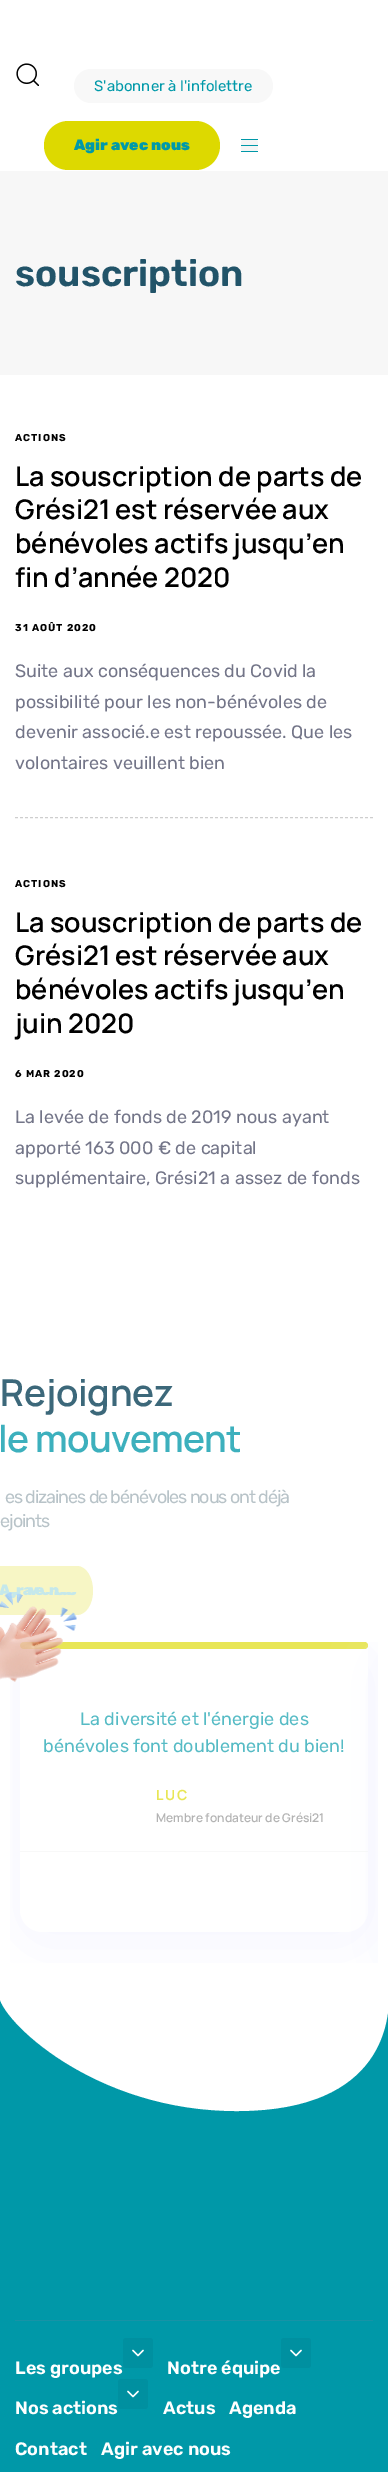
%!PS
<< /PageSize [388 2472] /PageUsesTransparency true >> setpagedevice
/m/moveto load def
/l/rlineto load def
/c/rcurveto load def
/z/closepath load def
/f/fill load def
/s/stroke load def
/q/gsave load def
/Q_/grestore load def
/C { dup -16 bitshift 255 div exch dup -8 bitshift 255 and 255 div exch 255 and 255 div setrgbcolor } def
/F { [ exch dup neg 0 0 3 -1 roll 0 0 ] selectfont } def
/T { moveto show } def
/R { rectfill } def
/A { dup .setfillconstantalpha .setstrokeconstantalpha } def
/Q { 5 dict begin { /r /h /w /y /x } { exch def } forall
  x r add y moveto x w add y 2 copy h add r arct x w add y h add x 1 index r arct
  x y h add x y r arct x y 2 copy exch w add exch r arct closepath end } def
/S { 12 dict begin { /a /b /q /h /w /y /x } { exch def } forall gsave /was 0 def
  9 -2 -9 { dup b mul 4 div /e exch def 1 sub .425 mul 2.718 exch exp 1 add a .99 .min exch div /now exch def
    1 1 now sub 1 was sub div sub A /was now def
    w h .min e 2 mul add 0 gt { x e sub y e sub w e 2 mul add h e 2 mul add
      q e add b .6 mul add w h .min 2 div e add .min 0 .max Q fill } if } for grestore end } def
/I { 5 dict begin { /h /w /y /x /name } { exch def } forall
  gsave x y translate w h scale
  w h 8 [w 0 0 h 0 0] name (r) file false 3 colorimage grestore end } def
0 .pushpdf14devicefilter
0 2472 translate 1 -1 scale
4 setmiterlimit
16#FFFFFF C
0 0 388 2472 R
16#F7F7F7 C
0 171 388 204 R
(1.rgb) 16 63 23 23 I
16#F8F8F8 C
74 69 199 34 17 Q f
/Rubik-Regular 15 F
16#0099A9 C
(S'abonner à l'infolettre) 94 91 T
16#DDD900 C
44 121 176 49 24.5 Q f
/Rubik-Black 15 F
16#0099A9 C
(Agir avec nous) 74 150 T
16#F5F5F5 C
241 139 17 13 4 Q f
16#0098A8 C
241 139 17 1 R
241 145 17 1 R
241 151 17 1 R
/Rubik-SemiBold 37 F
16#225469 C
(souscription) 15 286 T
16#CECECE C
[3 2] 0 setdash
15 817.5 m 358 0 l s
/Rubik-Bold 10 F
16#000000 C
15 441 m 1 0 (ACTIONS) ashow
/Manrope-SemiBold 27 F
(La souscription de parts de) 15 486 T
(Grési21 est réservée aux) 15 519 T
(bénévoles actifs jusqu’en) 15 553 T
(fin d’année 2020) 15 587 T
/Rubik-Bold 10 F
15 631 m 1 0 (31 AOÛT 2020) ashow
/Rubik-Regular 18 F
16#737588 C
(Suite aux conséquences du Covid la) 15 677 T
(possibilité pour les non-bénévoles de) 15 708 T
(devenir associé.e est repoussée. Que les) 15 738 T
(volontaires veuillent bien) 15 769 T
/Rubik-Bold 10 F
16#000000 C
15 887 m 1 0 (ACTIONS) ashow
/Manrope-SemiBold 27 F
(La souscription de parts de) 15 932 T
(Grési21 est réservée aux) 15 965 T
(bénévoles actifs jusqu’en) 15 999 T
(juin 2020) 15 1033 T
/Rubik-Bold 10 F
15 1077 m 1 0 (6 MAR 2020) ashow
/Rubik-Regular 18 F
16#737588 C
(La levée de fonds de 2019 nous ayant) 15 1123 T
(apporté 163 000 € de capital) 15 1154 T
(supplémentaire, Grési21 a assez de fonds) 15 1184 T
/Manrope-SemiBold 37 F
16#3C687A C
0 1406 m -.25 0 (Rejoignez) ashow
16#3DB0BD C
-2 1452 m -.75 0 (le mouvement) ashow
/Rubik-Regular 18 F
16#B8C3C8 C
5 1503 m -1.1 0 (es dizaines de bénévoles nous ont déjà) ashow
0 1527 m -1 0 (ejoints) ashow
16#F7F6C5 C
-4 1566 m 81 0 l 9 0 16 11 16 25 c 0 13 -7 24 -16 24 c -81 0 l -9 0 -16 -11 -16 -24 c 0 -14 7 -25 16 -25 c z f
/Rubik-Black 15 F
16#C5E8EB C
-1 1595 m -4 0 (A) ashow
16 1595 m -3 0 (r) ashow
23 1595 m -3 0 (a) ashow
29 1595 m -3 0 (v) ashow
35 1595 m -3 0 (e) ashow
49 1595 m -4 0 (n) ashow
q
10 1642 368 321 rectclip
16#F0F2FE C
20 1652 348 290 22 30 .76 S
Q_
16#FFFFFF C
23 1642 m 342 0 l 1.5 0 3 1.5 3 3 c 0 265 l 0 12 -10 22 -22 22 c -304 0 l -12 0 -22 -10 -22 -22 c 0 -265 l 0 -1.5 1.5 -3 3 -3 c z f
16#E8E656 C
20 1642 348 7 3.5 Q f
(2.rgb) 0 1592 77 90 I
16#F8F8F8 C
20 1851 348 1 R
q
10 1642 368 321 rectclip
16#F0F2FE C
388 1652 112 321 22 30 .76 S
Q_
/Rubik-Regular 18 F
16#56BBC5 C
(La diversité et l'énergie des) 80 1725 T
(bénévoles font doublement du bien!) 43 1752 T
/Manrope-Bold 14 F
16#E8E656 C
156 1800 m 1.5 0 (LUC) ashow
/Manrope-SemiBold 12 F
16#B3B3B3 C
(Membre fondateur de Grési21) 156 1822 T
16#0098A8 C
0 1999 388 473 R
16#FFFFFF C
-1 1987 m 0 8 l 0 23 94 117 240 116 c 146 -1 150 -93 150 -116 c 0 -8 l z f
16#1793A6 C
15 2320 358 1 R
/Rubik-SemiBold 18 F
16#FFFFFF C
(Les groupes) 15 2374 T
16#0090A0 C
123 2338 30 30 3 Q f
(3.rgb) 132 2349 12 8 I
16#FFFFFF C
(Notre équipe) 167 2374 T
16#0090A0 C
281 2338 30 30 3 Q f
(3.rgb) 290 2349 12 8 I
16#FFFFFF C
(Nos actions) 15 2414 T
16#0090A0 C
118 2379 30 30 3 Q f
(3.rgb) 127 2390 12 8 I
16#FFFFFF C
(Actus) 163 2414 T
(Agenda) 229 2414 T
(Contact) 15 2455 T
(Agir avec nous) 101 2455 T
.poppdf14devicefilter showpage
